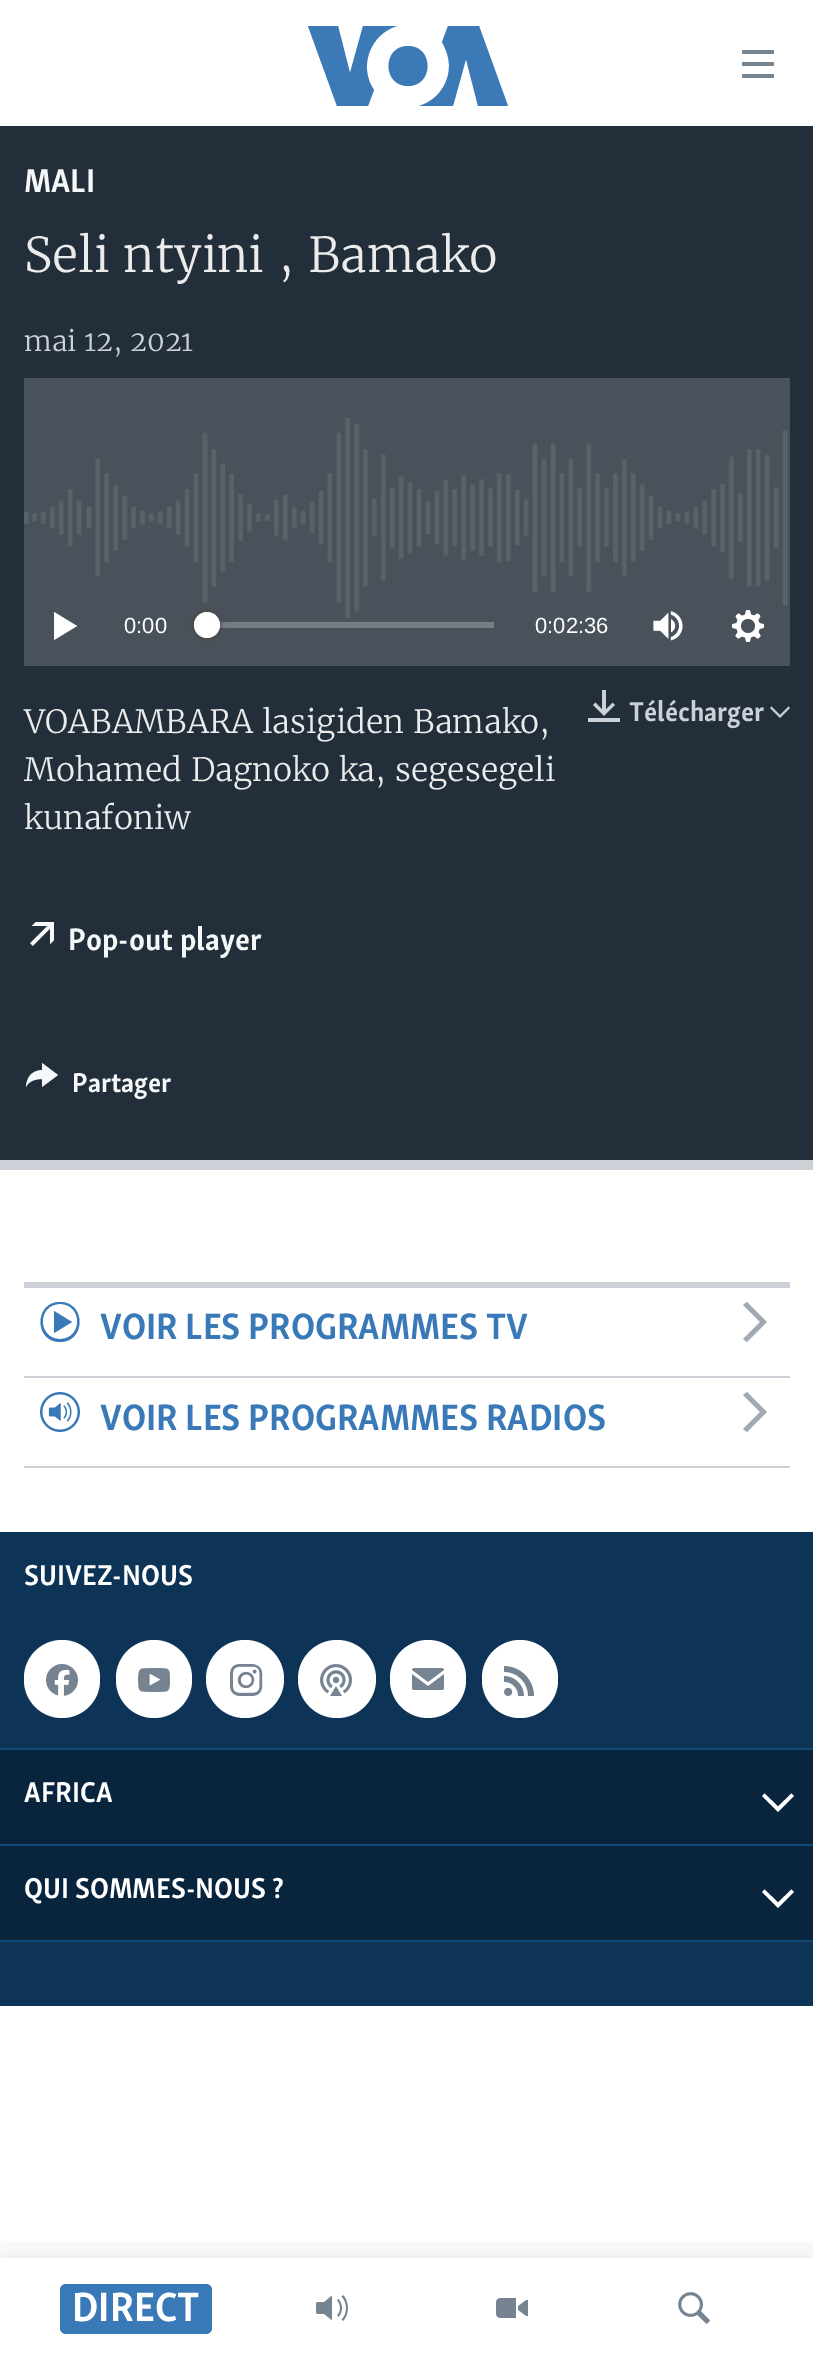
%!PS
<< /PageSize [813 2358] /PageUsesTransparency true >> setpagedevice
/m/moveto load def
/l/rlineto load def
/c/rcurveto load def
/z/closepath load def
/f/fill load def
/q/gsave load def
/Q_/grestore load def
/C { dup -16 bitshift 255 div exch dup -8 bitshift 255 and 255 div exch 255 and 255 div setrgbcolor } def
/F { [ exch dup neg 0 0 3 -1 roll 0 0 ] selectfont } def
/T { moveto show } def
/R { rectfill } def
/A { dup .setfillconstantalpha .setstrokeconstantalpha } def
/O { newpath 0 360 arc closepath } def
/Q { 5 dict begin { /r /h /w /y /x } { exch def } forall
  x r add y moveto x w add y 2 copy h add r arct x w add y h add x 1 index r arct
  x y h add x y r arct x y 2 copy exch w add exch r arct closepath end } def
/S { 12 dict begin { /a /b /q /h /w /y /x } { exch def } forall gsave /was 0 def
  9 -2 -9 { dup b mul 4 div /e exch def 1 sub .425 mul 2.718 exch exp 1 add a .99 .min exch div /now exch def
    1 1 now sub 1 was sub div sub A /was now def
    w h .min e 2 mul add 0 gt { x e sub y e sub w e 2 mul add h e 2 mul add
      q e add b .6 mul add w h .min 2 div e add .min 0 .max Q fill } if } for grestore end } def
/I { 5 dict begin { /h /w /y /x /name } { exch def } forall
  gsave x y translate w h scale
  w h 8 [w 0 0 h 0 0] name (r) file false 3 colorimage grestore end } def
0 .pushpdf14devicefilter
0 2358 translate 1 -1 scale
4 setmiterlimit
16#FFFFFF C
0 0 813 2358 R
16#222F3A C
0 126 813 1034 R
16#CBD1D6 C
0 1160 813 10 R
/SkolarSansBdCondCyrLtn-Bold 34 F
16#F6F7F8 C
(MALI) 24 192 T
/Merriweather-Light 48 F
16#EBEBEB C
(Seli ntyini , Bamako) 24 272 T
/Merriweather-Light 28 F
16#CBD1D6 C
(mai 12, 2021) 24 351 T
16#49525A C
24 378 766 288 R
(1.rgb) 24 418 764 200 I
16#FFFFFF C
54 640 m 23 -14 l -23 -14 l z f
/LiberationSans-Regular 22 F
(0:00) 124 633 T
16#777D83 C
219 622 275 6 R
16#414144 C
194 612 26 26 13 3 1 S
16#FFFFFF C
207 625 13 O f
(0:02:36) 535 633 T
(2.rgb) 653 611 30 30 I
(3.rgb) 732 610 32 32 I
/Merriweather-Light 32 F
16#EBEBEB C
(VOABAMBARA lasigiden Bamako,) 24 733 T
(Mohamed Dagnoko ka, segesegeli) 24 781 T
(kunafoniw) 24 829 T
(4.rgb) 588 690 32 32 I
/SkolarSansBdCondCyrLtn-Bold 28 F
16#CBD1D6 C
(Télécharger) 629 721 T
770 708 m 10 10 l 10 -10 l -1.5 -1.5 l -8.5 8.5 l -8.5 -8.5 l z f
(5.rgb) 30 922 24 24 I
/SkolarSansBdCondCyrLtn-Bold 32 F
16#F6F7F8 C
(Pop-out player) 68 950 T
26 1087 m .5 -10 6 -16.5 16 -17 c 0 -7 l 16 12 l -16 12 l 0 -8 l -6 0 -13.5 2 -16 8 c z f
/SkolarSansBdCondCyrLtn-Bold 28 F
(Partager) 72 1092 T
16#CBD1D6 C
24 1282 766 6 R
24 1376 766 2 R
16#3A79B7 C
54 1333 m 18 -11 l -18 -11 l z 60 1304 m 23 0 23 35 0 35 c -23 0 -23 -35 0 -35 c z 60 1302 m -26 0 -26 40 0 40 c 26 0 26 -40 0 -40 c z f
/SkolarSansBdCondCyrLtn-Bold 37.75 F
(VOIR LES PROGRAMMES TV) 100 1339 T
16#A1AAB4 C
747 1342 m 20 -20 l -20 -20 l -4 3 l 17 17 l -17 17 l z f
16#CBD1D6 C
24 1466 766 2 R
(6.rgb) 40 1392 40 40 I
16#3A79B7 C
(VOIR LES PROGRAMMES RADIOS) 100 1430 T
16#A1AAB4 C
747 1432 m 20 -20 l -20 -20 l -4 3 l 17 17 l -17 17 l z f
16#0D3456 C
0 1532 813 474 R
16#134976 C
0 1940 813 2 R
/SkolarSansBdCondCyrLtn-Bold 29.5 F
16#FFFFFF C
(SUIVEZ-NOUS) 24 1585 T
24 1640 76 78 38 Q f
(7.rgb) 46 1664 32 32 I
116 1640 76 78 38 Q f
(8.rgb) 138 1668 32 24 I
245 1679 39 O f
(9.rgb) 230 1664 33 32 I
337 1679 39 O f
(10.rgb) 320 1664 32 32 I
390 1640 76 78 38 Q f
(11.rgb) 412 1668 32 22 I
482 1640 76 78 38 Q f
(12.rgb) 504 1666 30 30 I
16#134976 C
0 1748 813 2 R
16#09243D C
0 1750 813 94 R
16#FFFFFF C
(AFRICA) 24 1802 T
762 1796 m 16 16 l 16 -16 l -2.5 -2.5 l -13.5 13 l -13.5 -13 l z f
16#134976 C
0 1844 813 2 R
16#09243D C
0 1846 813 94 R
16#FFFFFF C
(QUI SOMMES-NOUS ?) 24 1898 T
762 1892 m 16 16 l 16 -16 l -2.5 -2.5 l -13.5 13 l -13.5 -13 l z f
16#3B79B7 C
374 90 m -6 16 l -31 0 l -29 -80 l 30 0 l 12 47 l 13 -47 l 34 0 l -27 8 -39 41 -23 64 c z 408 46 m -26 0 -26 40 0 40 c 26 0 26 -40 0 -40 c z 449 66 m 0 19 -13 35 -30 40 c 34 0 l 13 -47 l 12 47 l 30 0 l -29 -80 l -31 0 l -6 16 l 4 7 7 15 7 24 c z f
(13.rgb) 742 50 32 28 I
q
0 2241 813 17 rectclip
16#000000 C
0 2258 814 100 0 20 .1 S
Q_
16#3A79B7 C
60 2284 152 50 6 Q f
/SkolarSansBdCondCyrLtn-Bold 42 F
16#FFFFFF C
(DIRECT) 72 2321 T
(14.rgb) 316 2295 32 26 I
(15.rgb) 496 2298 32 20 I
(16.rgb) 678 2292 32 32 I
.poppdf14devicefilter showpage
